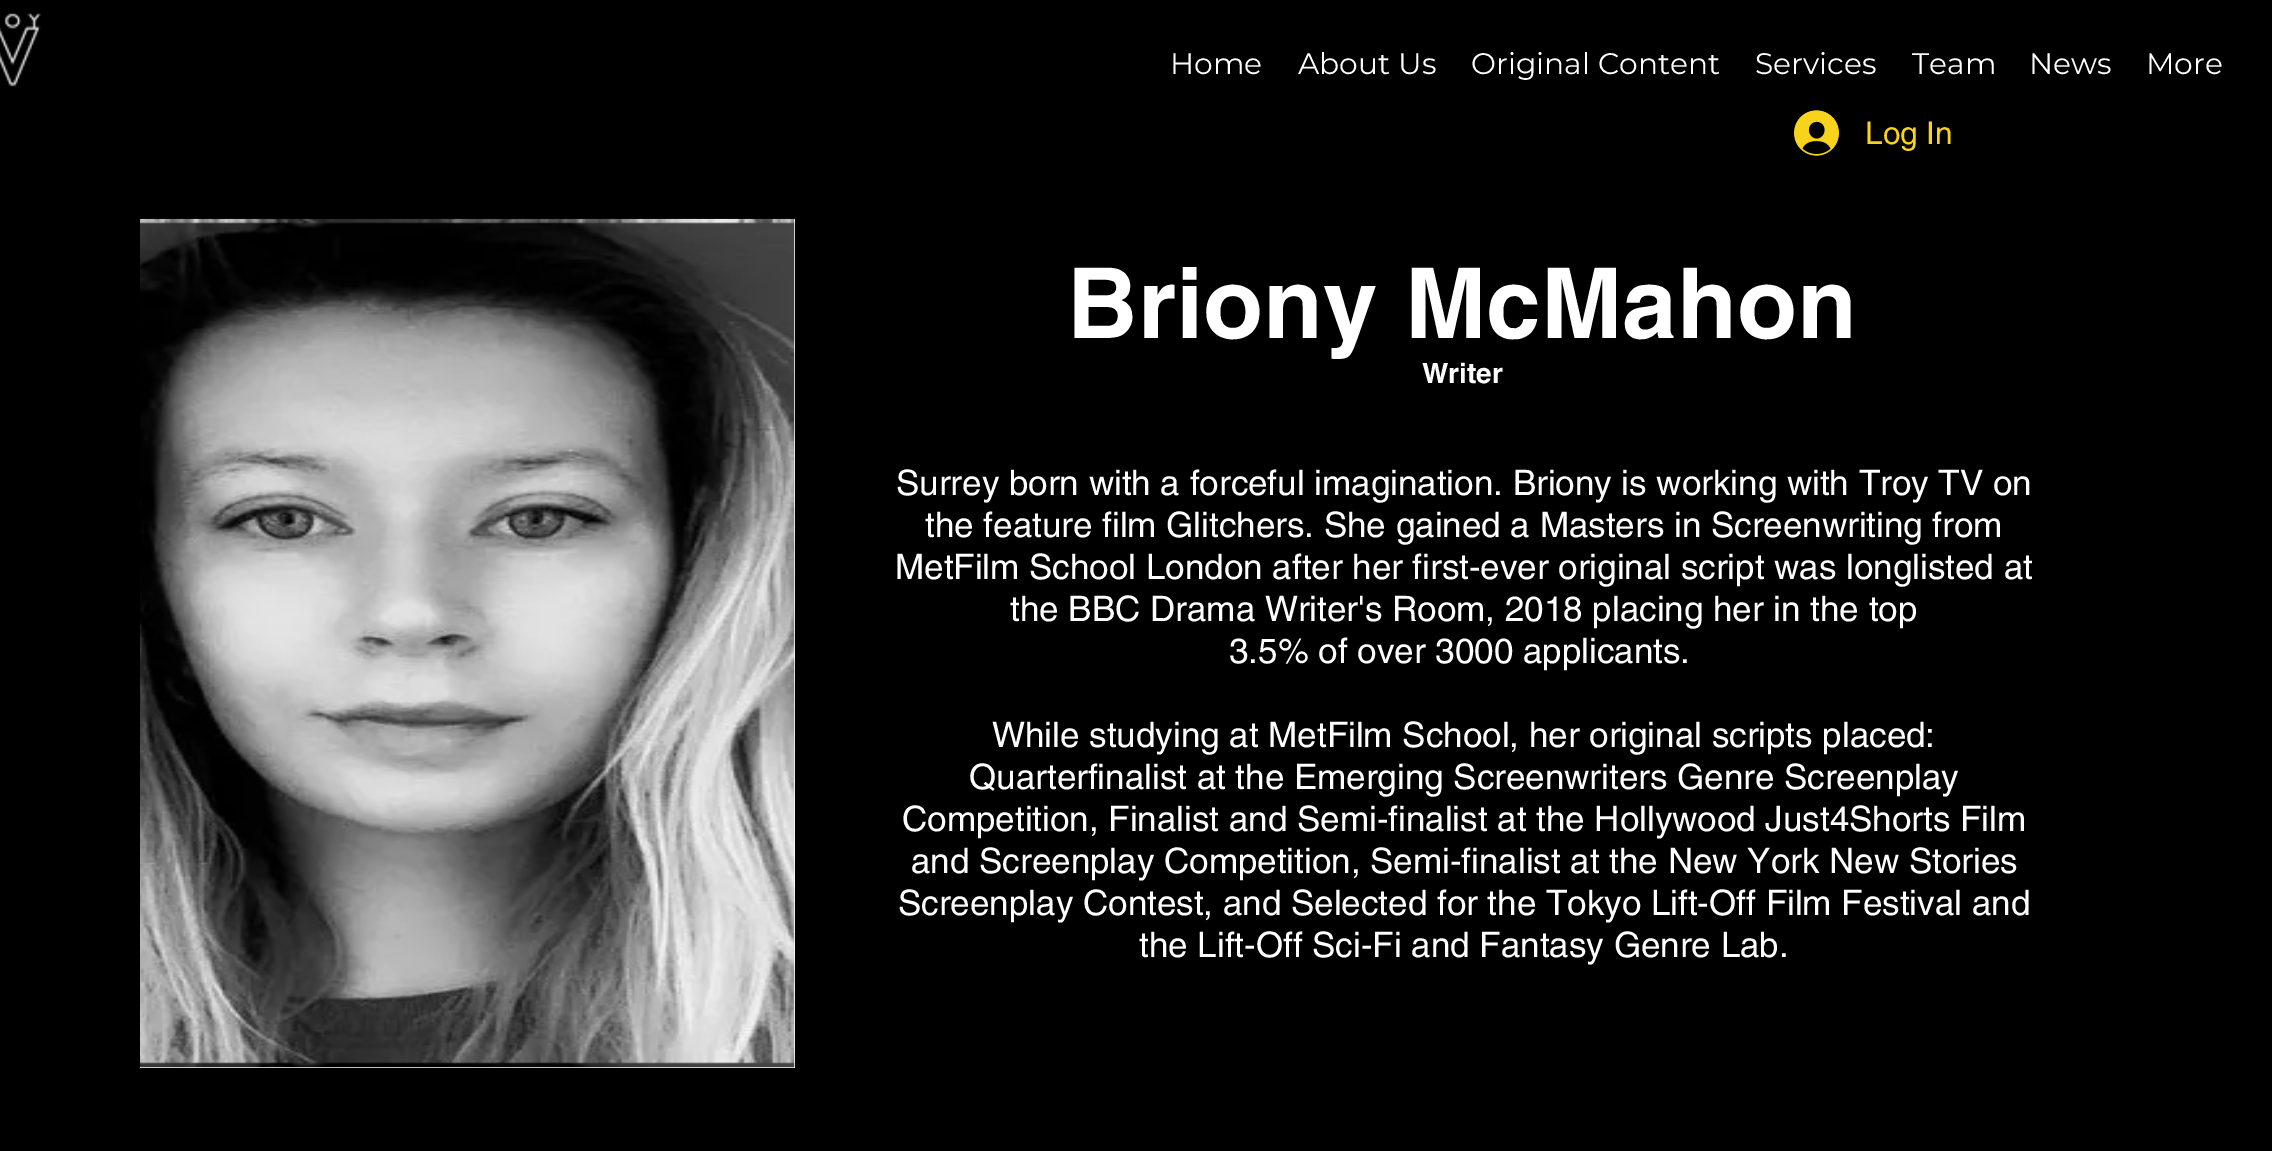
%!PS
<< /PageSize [2272 1151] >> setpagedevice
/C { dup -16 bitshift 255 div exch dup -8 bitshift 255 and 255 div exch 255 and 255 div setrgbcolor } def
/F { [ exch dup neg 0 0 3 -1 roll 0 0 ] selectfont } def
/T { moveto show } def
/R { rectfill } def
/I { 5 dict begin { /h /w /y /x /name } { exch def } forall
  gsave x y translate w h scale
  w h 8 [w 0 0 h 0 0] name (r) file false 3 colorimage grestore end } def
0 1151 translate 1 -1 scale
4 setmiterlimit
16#000000 C
0 0 2272 1151 R
(1.rgb) 0 13 41 74 I
/Montserrat-Regular 29.75 F
16#FFFFFF C
(Home) 1170 74 T
(About Us) 1298 74 T
(Original Content) 1471 74 T
(Services) 1755 74 T
(Team) 1912 74 T
(News) 2029 74 T
(More) 2146 74 T
(2.rgb) 1794 110 45 46 I
/helvetica-Regular 31.5 F
16#F8D31C C
(Log In) 1865 144 T
16#FFFFFF C
140 219 655 849 R
(3.rgb) 140 218 655 850 I
/helvetica-Bold 98 F
(Briony McMahon) 1067 338 T
/helvetica-Bold 28 F
(Writer) 1422 383 T
/helvetica-Regular 35 F
(Surrey born with a forceful imagination. Briony is working with Troy TV on) 896 495 T
(the feature film Glitchers. She gained a Masters in Screenwriting from) 925 537 T
(MetFilm School London after her first-ever original script was longlisted at) 895 579 T
(the BBC Drama Writer's Room, 2018 placing her in the top) 1010 621 T
(3.5% of over 3000 applicants.) 1229 663 T
(While studying at MetFilm School, her original scripts placed:) 992 747 T
(Quarterfinalist at the Emerging Screenwriters Genre Screenplay) 969 789 T
(Competition, Finalist and Semi-finalist at the Hollywood Just4Shorts Film) 902 831 T
(and Screenplay Competition, Semi-finalist at the New York New Stories) 911 873 T
(Screenplay Contest, and Selected for the Tokyo Lift-Off Film Festival and) 898 915 T
(the Lift-Off Sci-Fi and Fantasy Genre Lab.) 1139 957 T
showpage
